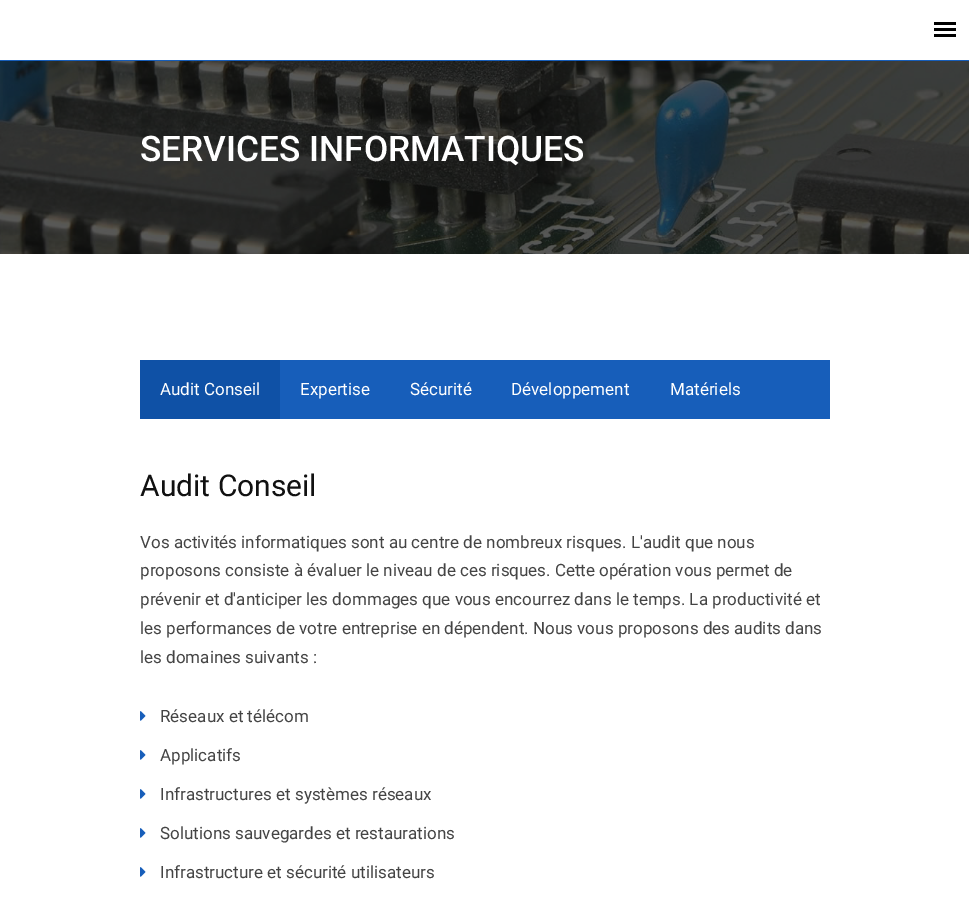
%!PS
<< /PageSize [969 914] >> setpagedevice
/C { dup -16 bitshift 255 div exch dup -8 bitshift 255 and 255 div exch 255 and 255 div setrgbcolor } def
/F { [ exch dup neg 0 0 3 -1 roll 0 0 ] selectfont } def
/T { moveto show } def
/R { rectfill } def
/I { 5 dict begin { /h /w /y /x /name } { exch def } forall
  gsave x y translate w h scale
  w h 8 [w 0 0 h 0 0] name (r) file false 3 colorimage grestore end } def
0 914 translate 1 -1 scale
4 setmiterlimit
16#FFFFFF C
0 0 969 914 R
16#000000 C
934 22 22 3 R
934 28 22 3 R
934 34 22 3 R
16#175EBA C
0 60 969 1 R
(1.rgb) 0 61 969 193 I
/Roboto-Medium 35.25 F
16#FFFFFF C
(SERVICES INFORMATIQUES) 140 161 T
16#175EBA C
280 360 550 59 R
16#0F51A6 C
140 360 140 59 R
/Roboto-Regular 17 F
16#FFFFFF C
(Audit Conseil) 160 395 T
(Expertise) 300 395 T
(Sécurité) 410 395 T
(Développement) 511 395 T
(Matériels) 670 395 T
/Roboto-Regular 30 F
16#111111 C
(Audit Conseil) 140 496 T
/Roboto-Regular 17 F
16#444444 C
(Vos activités informatiques sont au centre de nombreux risques. L'audit que nous) 140 548 T
(proposons consiste à évaluer le niveau de ces risques. Cette opération vous permet de) 140 576 T
(prévenir et d'anticiper les dommages que vous encourrez dans le temps. La productivité et) 140 605 T
(les performances de votre entreprise en dépendent. Nous vous proposons des audits dans) 140 634 T
(les domaines suivants :) 140 663 T
(2.rgb) 140 711 6 10 I
(Réseaux et télécom) 160 722 T
(2.rgb) 140 750 6 10 I
(Applicatifs) 160 761 T
(2.rgb) 140 789 6 10 I
(Infrastructures et systèmes réseaux) 160 800 T
(2.rgb) 140 828 6 10 I
(Solutions sauvegardes et restaurations) 160 839 T
(2.rgb) 140 867 6 10 I
(Infrastructure et sécurité utilisateurs) 160 878 T
showpage
